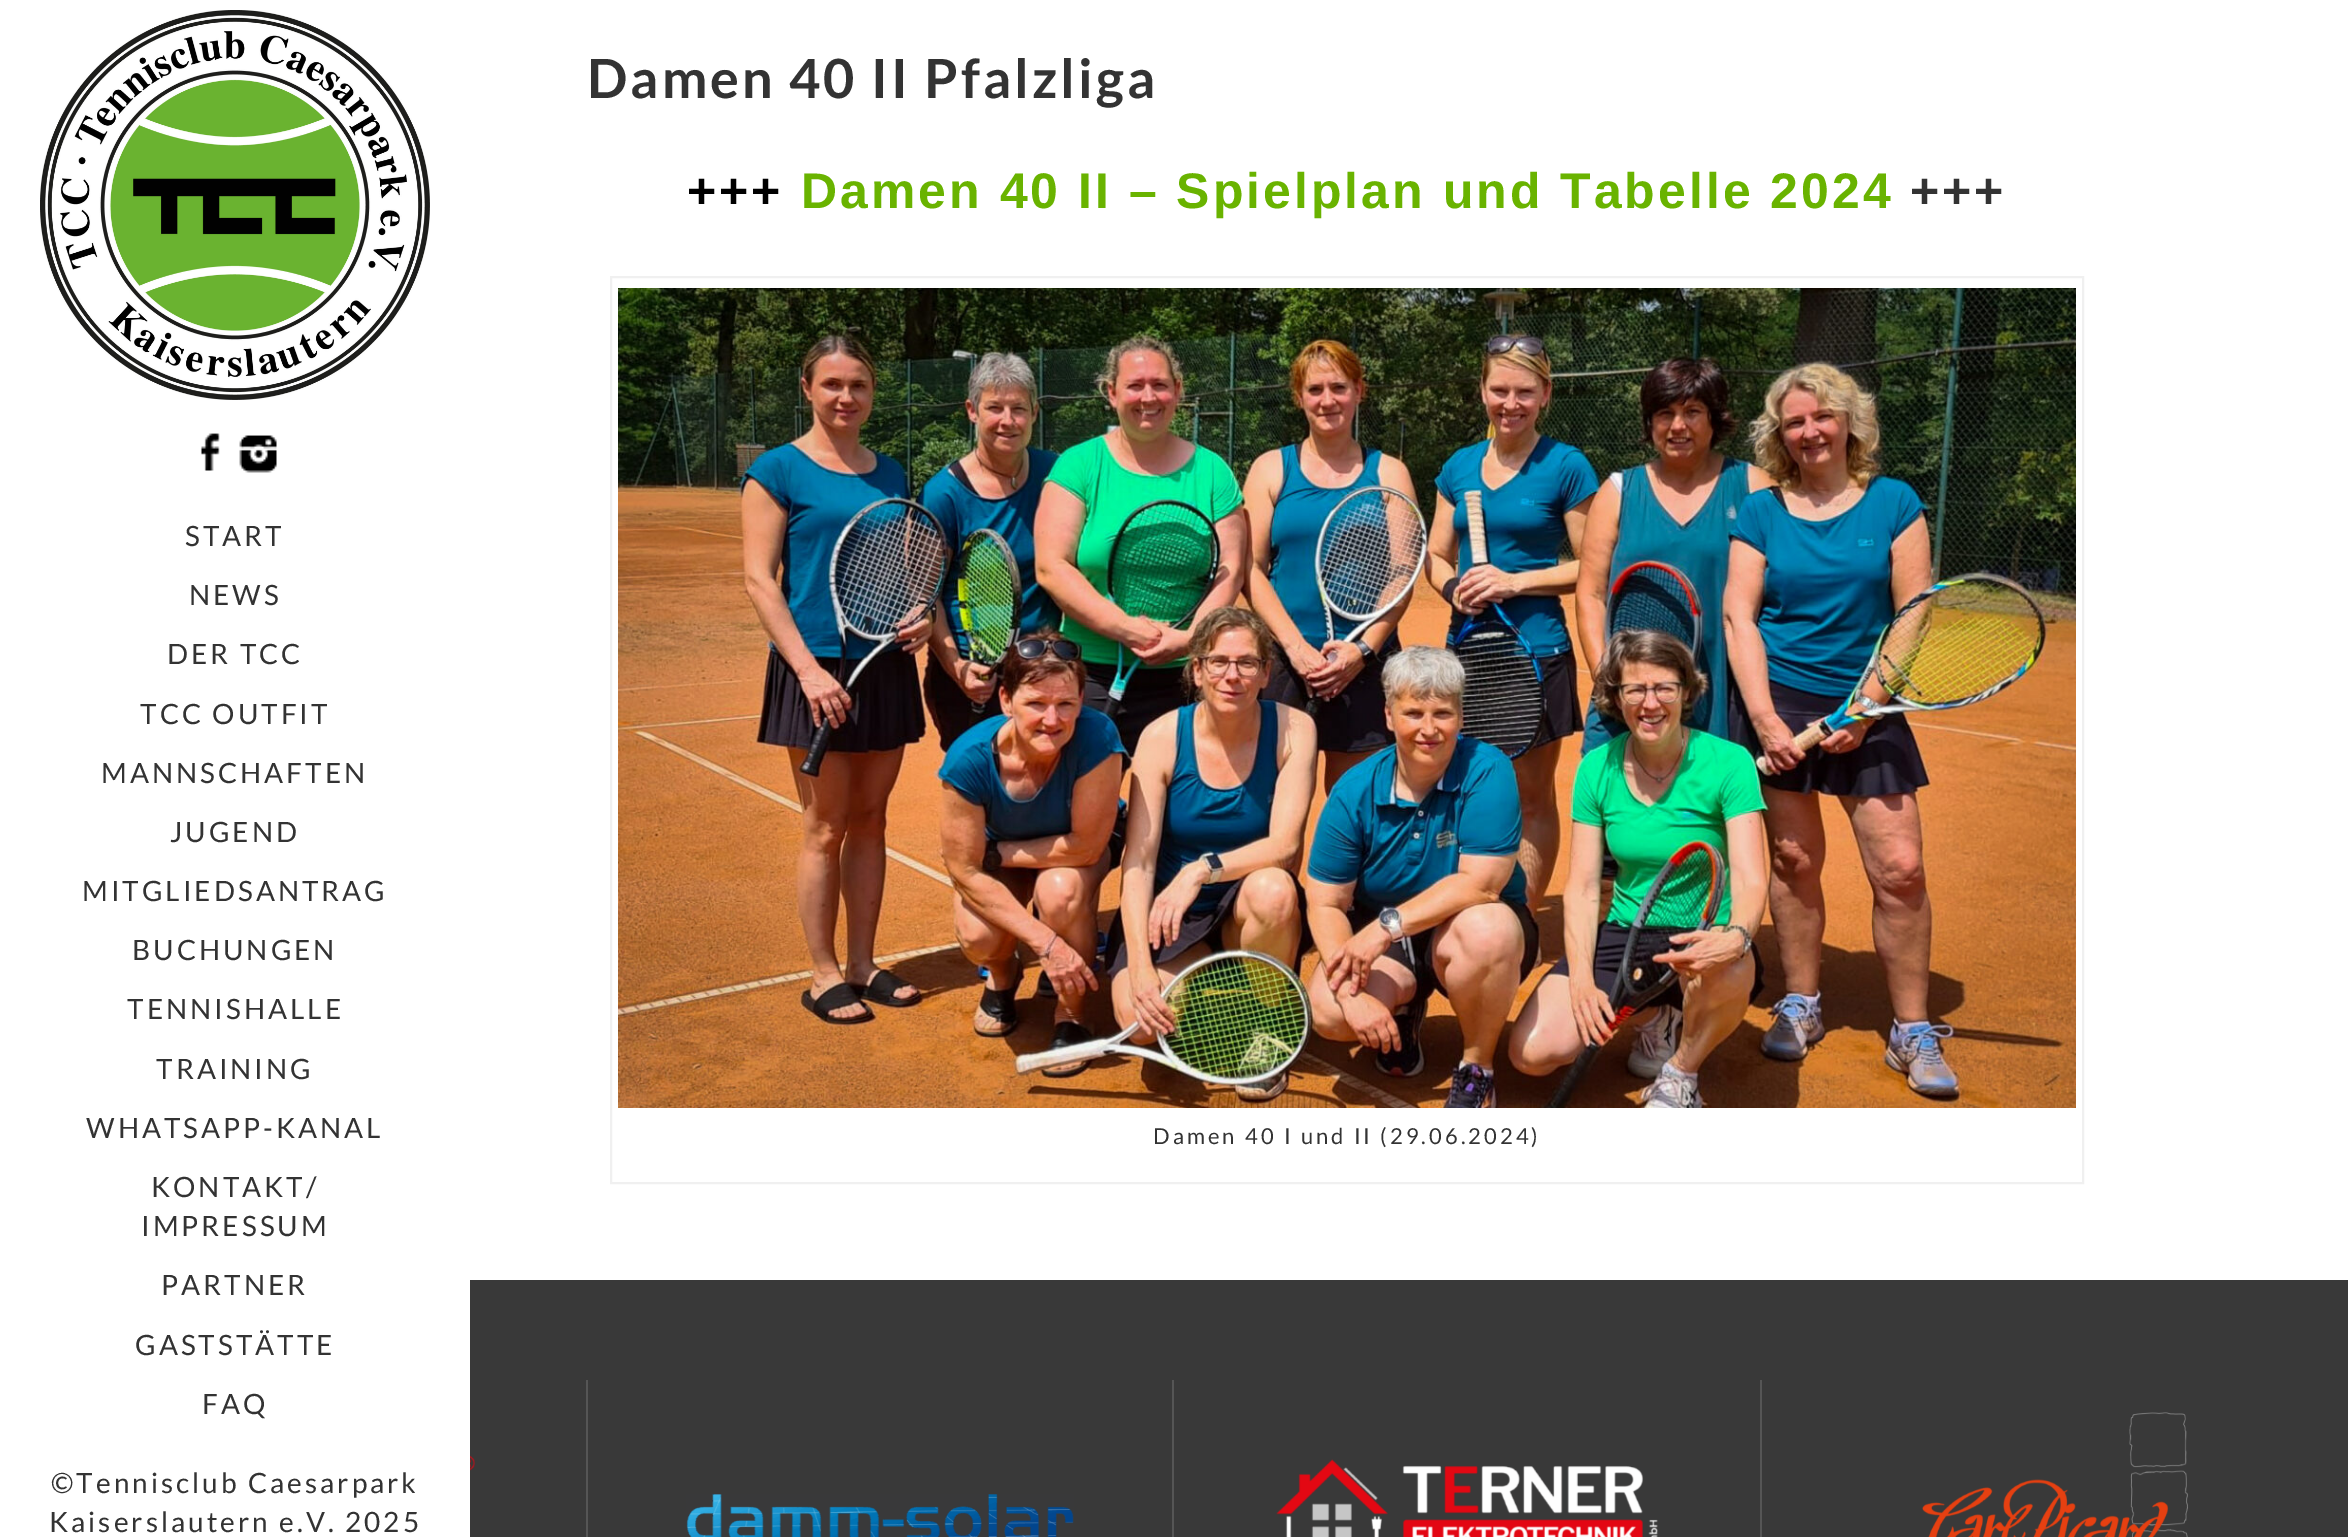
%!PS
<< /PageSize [2348 1537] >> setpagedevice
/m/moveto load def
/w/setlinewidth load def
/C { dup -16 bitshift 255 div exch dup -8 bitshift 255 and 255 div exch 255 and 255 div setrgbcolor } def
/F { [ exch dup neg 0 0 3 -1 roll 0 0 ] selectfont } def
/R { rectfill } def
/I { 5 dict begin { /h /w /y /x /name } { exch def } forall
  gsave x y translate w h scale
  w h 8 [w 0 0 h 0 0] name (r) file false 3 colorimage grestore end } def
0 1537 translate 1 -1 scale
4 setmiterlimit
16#FFFFFF C
0 0 2348 1537 R
(1.rgb) 40 10 390 390 I
(2.rgb) 200 433 20 38 I
(3.rgb) 239 435 38 38 I
/Lato-Regular 28 F
16#333333 C
185 546 m 3 0 (START) ashow
189 605 m 3 0 (NEWS) ashow
167 664 m 3 0 (DER TCC) ashow
140 724 m 3 0 (TCC OUTFIT) ashow
101 783 m 3 0 (MANNSCHAFTEN) ashow
170 842 m 3 0 (JUGEND) ashow
82 901 m 3 0 (MITGLIEDSANTRAG) ashow
132 960 m 3 0 (BUCHUNGEN) ashow
127 1019 m 3 0 (TENNISHALLE) ashow
156 1079 m 3 0 (TRAINING) ashow
86 1138 m 3 0 (WHATSAPP-KANAL) ashow
151 1197 m 3 0 (KONTAKT/) ashow
141 1236 m 3 0 (IMPRESSUM) ashow
161 1295 m 3 0 (PARTNER) ashow
135 1355 m 3 0 (GASTSTÄTTE) ashow
202 1414 m 3 0 (FAQ) ashow
51 1493 m 3 0 (©Tennisclub Caesarpark) ashow
49 1532 m 3 0 (Kaiserslautern e.V. 2025) ashow
/Lato-Bold 54 F
587 98 m 3 0 (Damen 40 II Pfalzliga) ashow
/LiberationSans-Bold 50 F
16#000000 C
687 208 m 3 0 (+++) ashow
16#69B300 C
801 208 m 3 0 (Damen 40 II – Spielplan und Tabelle 2024) ashow
16#333333 C
1910 208 m 3 0 (+++) ashow
16#F0F0F0 C
2 w
611 277 1472 906 rectstroke
(4.rgb) 618 288 1458 820 I
/Lato-Regular 22 F
16#333333 C
1153 1144 m 3 0 (Damen 40 I und II \(29.06.2024\)) ashow
16#393939 C
470 1280 1878 257 R
16#555555 C
586 1380 2 157 R
(5.rgb) 470 1455 5 16 I
1172 1380 2 157 R
(6.rgb) 686 1494 388 43 I
1760 1380 2 157 R
(7.rgb) 1276 1459 382 78 I
(8.rgb) 1922 1412 266 125 I
showpage
